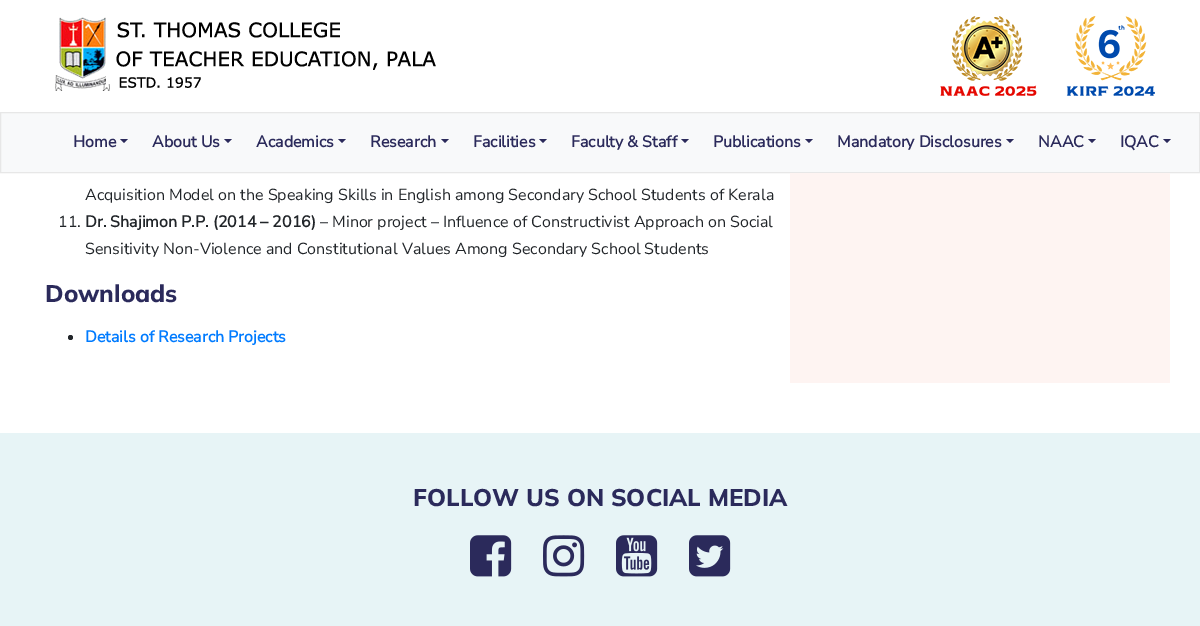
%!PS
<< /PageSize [1200 626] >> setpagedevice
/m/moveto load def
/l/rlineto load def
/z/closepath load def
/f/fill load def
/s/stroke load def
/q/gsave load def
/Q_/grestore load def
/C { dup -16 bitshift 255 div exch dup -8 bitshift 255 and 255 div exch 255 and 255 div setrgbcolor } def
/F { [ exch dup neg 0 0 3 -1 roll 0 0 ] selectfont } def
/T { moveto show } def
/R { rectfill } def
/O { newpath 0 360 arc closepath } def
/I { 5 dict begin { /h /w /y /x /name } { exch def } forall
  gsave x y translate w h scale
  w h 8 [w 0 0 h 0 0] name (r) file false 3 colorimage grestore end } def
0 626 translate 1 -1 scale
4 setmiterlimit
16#FFFFFF C
0 0 1200 626 R
(1.rgb) 55 17 381 74 I
(2.rgb) 940 16 215 80 I
16#F8F9FA C
.5 112.5 m 1199 0 l 0 60 l -1199 0 l z q f Q_
16#E7E7E7 C
s
/NunitoSans-Bold 16 F
16#2B2A5B C
(Home) 73 147 T
120 139 m 8 0 l -4 4 l z f
(About Us) 152 147 T
224 139 m 8 0 l -4 4 l z f
(Academics) 256 147 T
338 139 m 8 0 l -4 4 l z f
(Research) 370 147 T
441 139 m 8 0 l -4 4 l z f
(Facilities) 473 147 T
539 139 m 8 0 l -4 4 l z f
(Faculty & Staff) 571 147 T
681 139 m 8 0 l -4 4 l z f
(Publications) 713 147 T
805 139 m 8 0 l -4 4 l z f
(Mandatory Disclosures) 837 147 T
1006 139 m 8 0 l -4 4 l z f
(NAAC) 1038 147 T
1088 139 m 8 0 l -4 4 l z f
(IQAC) 1120 147 T
1163 139 m 8 0 l -4 4 l z f
/NunitoSans-ExtraLight 16 F
16#212529 C
(Acquisition Model on the Speaking Skills in English among Secondary School Students of Kerala) 85 200 T
(11.) 58 227 T
/NunitoSans-Bold 16 F
(Dr. Shajimon P.P. \(2014 – 2016\)) 85 227 T
/NunitoSans-ExtraLight 16 F
(– Minor project – Influence of Constructivist Approach on Social) 320 227 T
(Sensitivity Non-Violence and Constitutional Values Among Secondary School Students) 85 254 T
/Mulish-ExtraLight 24 F
16#2B2A5B C
(Downloads) 45 302 T
16#212529 C
70.5 337.5 2.5 O f
/NunitoSans-Bold 16 F
16#007BFF C
(Details of Research Projects) 85 342 T
16#FEF4F2 C
790 173 380 210 R
16#E7F4F6 C
0 433 1200 193 R
/Mulish-ExtraLight 24 F
16#2B2A5B C
(FOLLOW US ON SOCIAL MEDIA) 413 506 T
(3.rgb) 470 535 42 42 I
(4.rgb) 543 535 42 42 I
(5.rgb) 616 535 42 42 I
(6.rgb) 689 535 42 42 I
showpage
